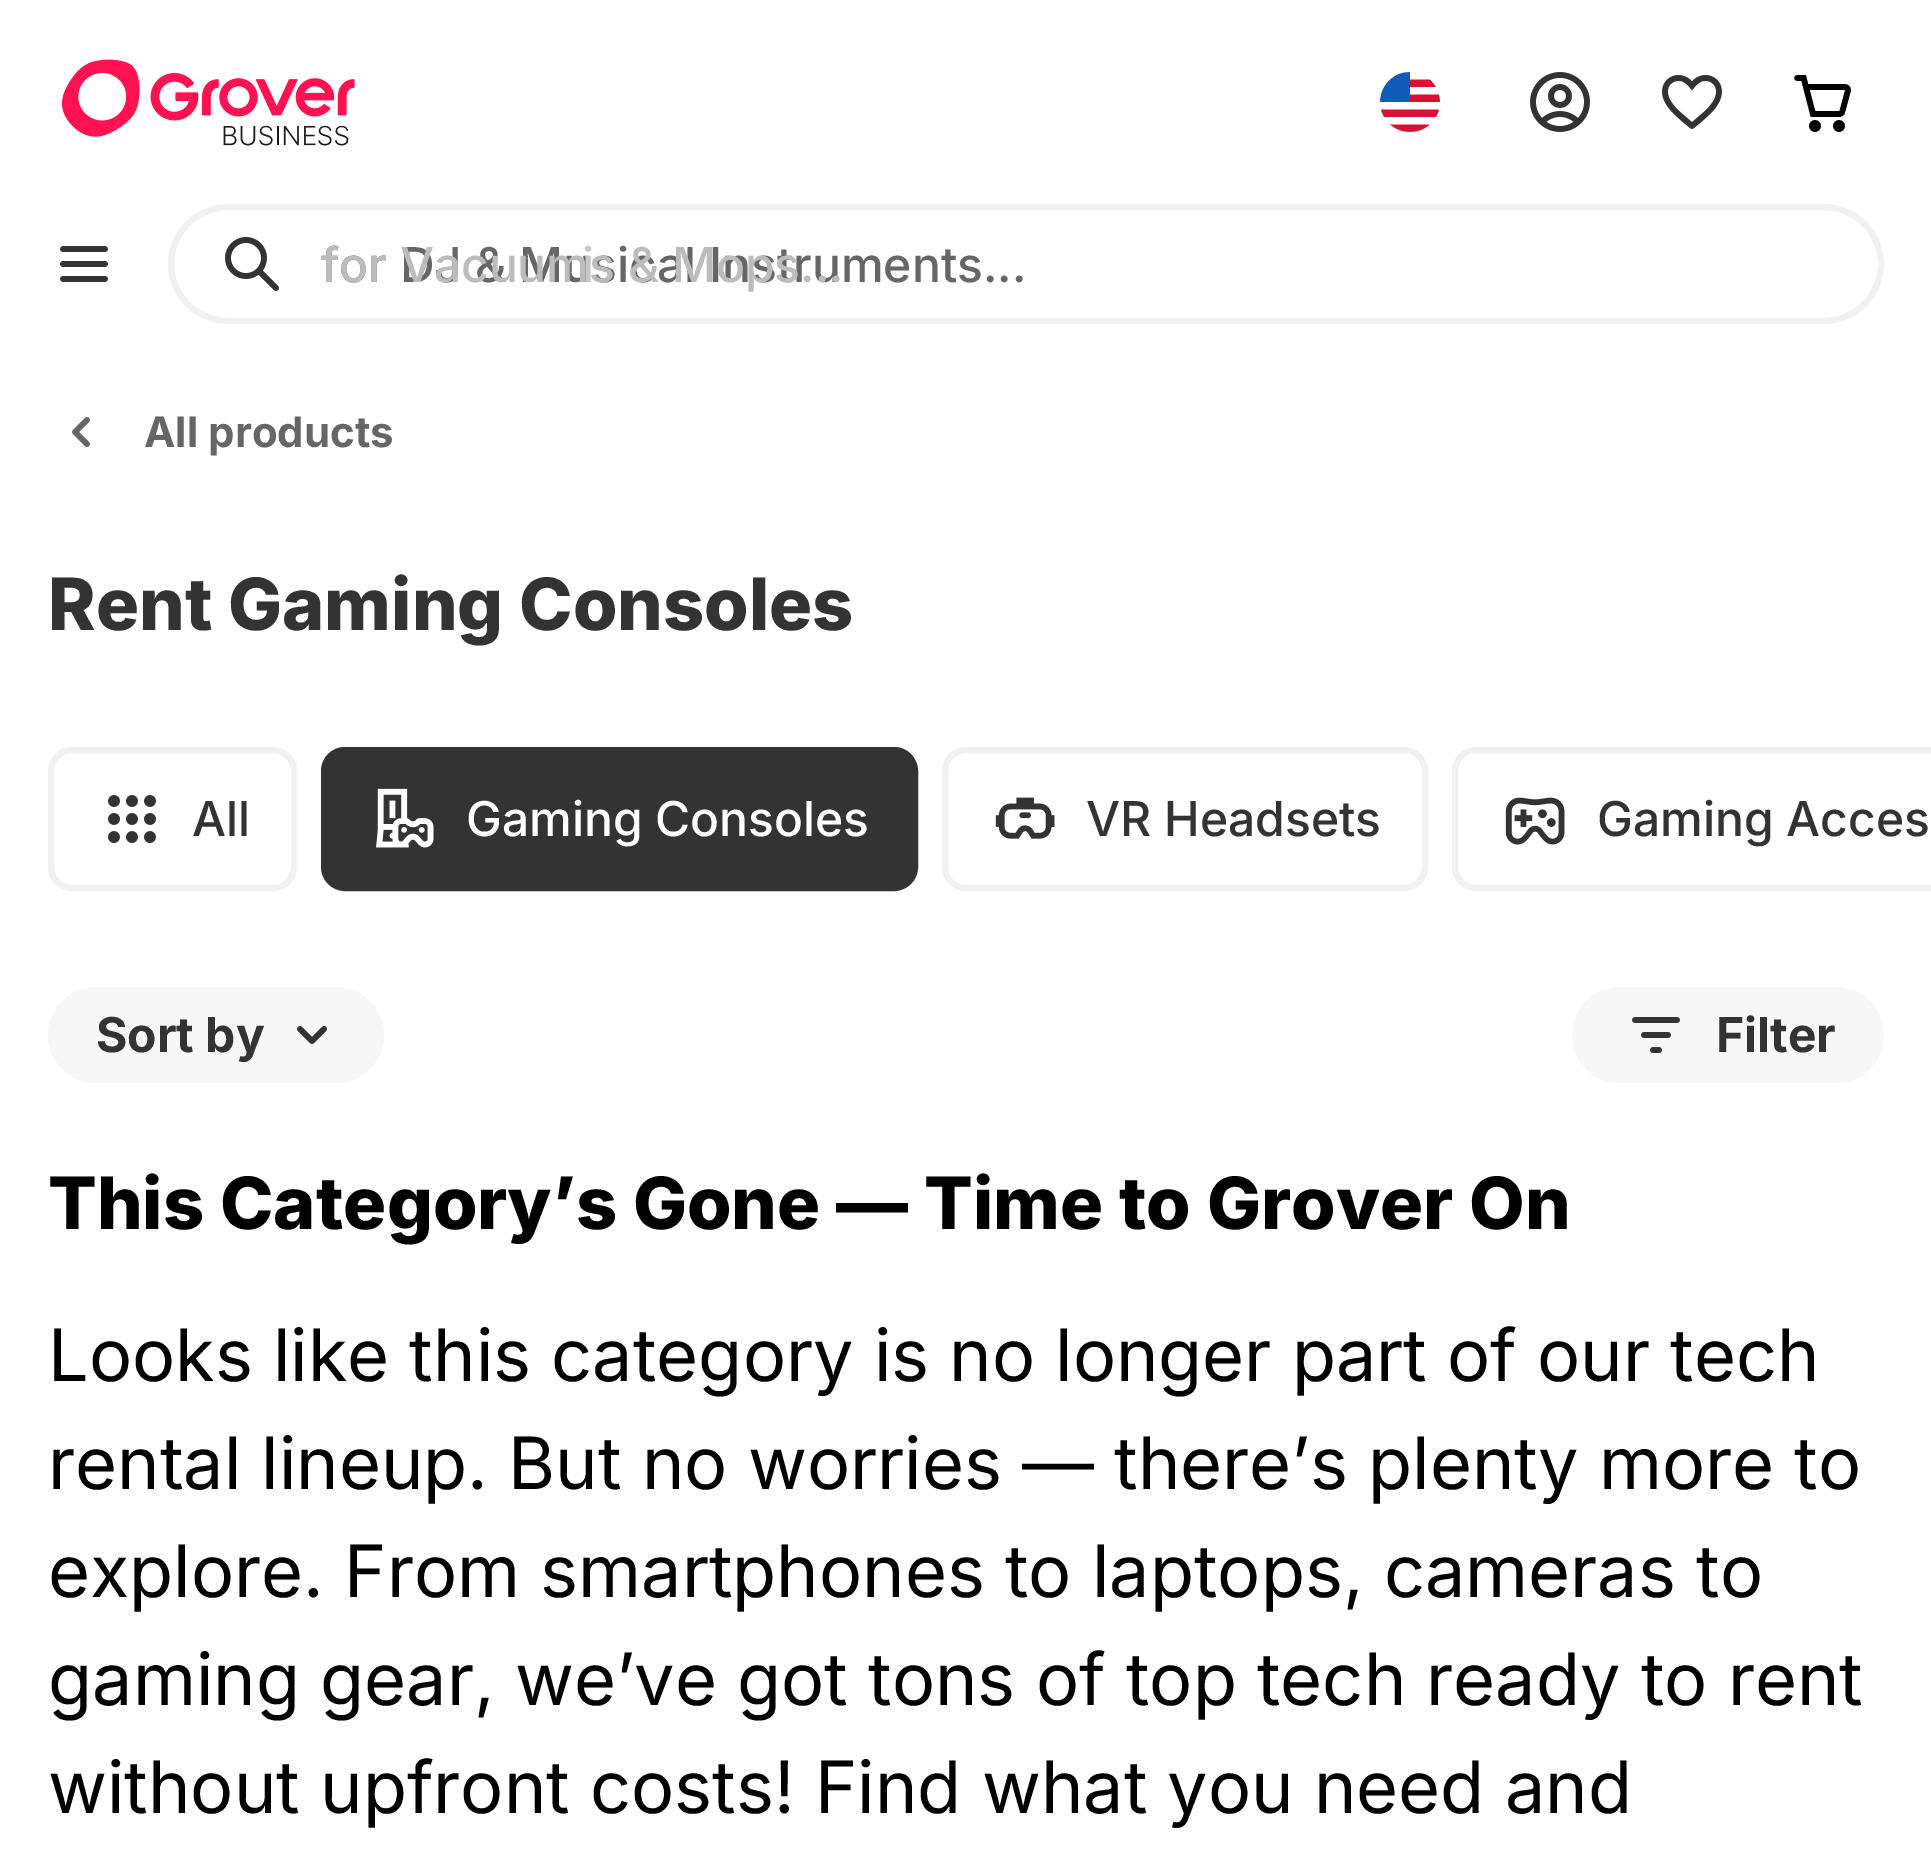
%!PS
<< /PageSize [1931 1849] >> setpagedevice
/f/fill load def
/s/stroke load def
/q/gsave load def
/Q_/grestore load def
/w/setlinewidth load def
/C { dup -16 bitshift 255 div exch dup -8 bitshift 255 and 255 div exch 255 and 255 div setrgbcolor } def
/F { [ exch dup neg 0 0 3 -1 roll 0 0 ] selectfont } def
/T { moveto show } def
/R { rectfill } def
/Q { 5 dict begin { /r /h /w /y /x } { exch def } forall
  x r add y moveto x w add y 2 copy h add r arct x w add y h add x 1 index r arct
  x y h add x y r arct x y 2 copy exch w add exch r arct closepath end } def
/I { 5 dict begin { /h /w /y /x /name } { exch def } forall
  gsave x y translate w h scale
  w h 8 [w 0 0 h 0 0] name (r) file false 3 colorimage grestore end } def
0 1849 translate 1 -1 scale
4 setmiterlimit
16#FFFFFF C
0 0 1931 1849 R
(1.rgb) 62 59 293 87 I
(2.rgb) 1380 72 60 60 I
(3.rgb) 1530 72 60 60 I
(4.rgb) 1662 75 60 54 I
(5.rgb) 1794 75 57 57 I
(6.rgb) 60 246 48 36 I
16#F1F1F1 C
6 w
171 207 1710 114 57 Q s
(7.rgb) 225 237 54 54 I
/Inter-Medium 48 F
16#666666 C
(for DJ & Musical Instruments...) 321 282 T
16#BCBCBC C
(for Vacuums & Mops...) 321 282 T
16#C8C8C8 C
(i) 582 282 T
(8.rgb) 72 417 18 30 I
/Inter-Bold 42 F
16#666666 C
(All products) 144 447 T
/Inter-ExtraBold 72 F
16#333333 C
(Rent Gaming Consoles) 48 630 T
16#F1F1F1 C
51 750 243 138 21 Q s
(9.rgb) 108 795 48 48 I
/Inter-Medium 48 F
16#333333 C
(All) 192 836 T
324 750 591 138 21 Q q f Q_
s
(10.rgb) 376 788 58 60 I
16#FFFFFF C
(Gaming Consoles) 466 836 T
16#F1F1F1 C
945 750 480 138 21 Q s
(11.rgb) 995 797 60 42 I
16#333333 C
(VR Headsets) 1086 836 T
16#F1F1F1 C
1455 750 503 138 21 Q s
(12.rgb) 1505 797 60 48 I
16#333333 C
(Gaming Acces) 1597 836 T
16#F7F7F7 C
48 987 336 96 48 Q f
/Inter-Bold 48 F
16#333333 C
(Sort by) 96 1052 T
(13.rgb) 297 1026 30 18 I
16#F7F7F7 C
1572 987 312 96 48 Q f
(14.rgb) 1632 1017 48 36 I
16#333333 C
(Filter) 1716 1052 T
/Inter-ExtraBold 72 F
16#000000 C
(This Category’s Gone — Time to Grover On) 48 1229 T
/Inter-Regular 72 F
(Looks like this category is no longer part of our tech) 48 1381 T
(rental lineup. But no worries — there’s plenty more to) 48 1489 T
(explore. From smartphones to laptops, cameras to) 48 1597 T
(gaming gear, we’ve got tons of top tech ready to rent) 48 1705 T
(without upfront costs! Find what you need and) 48 1813 T
showpage
